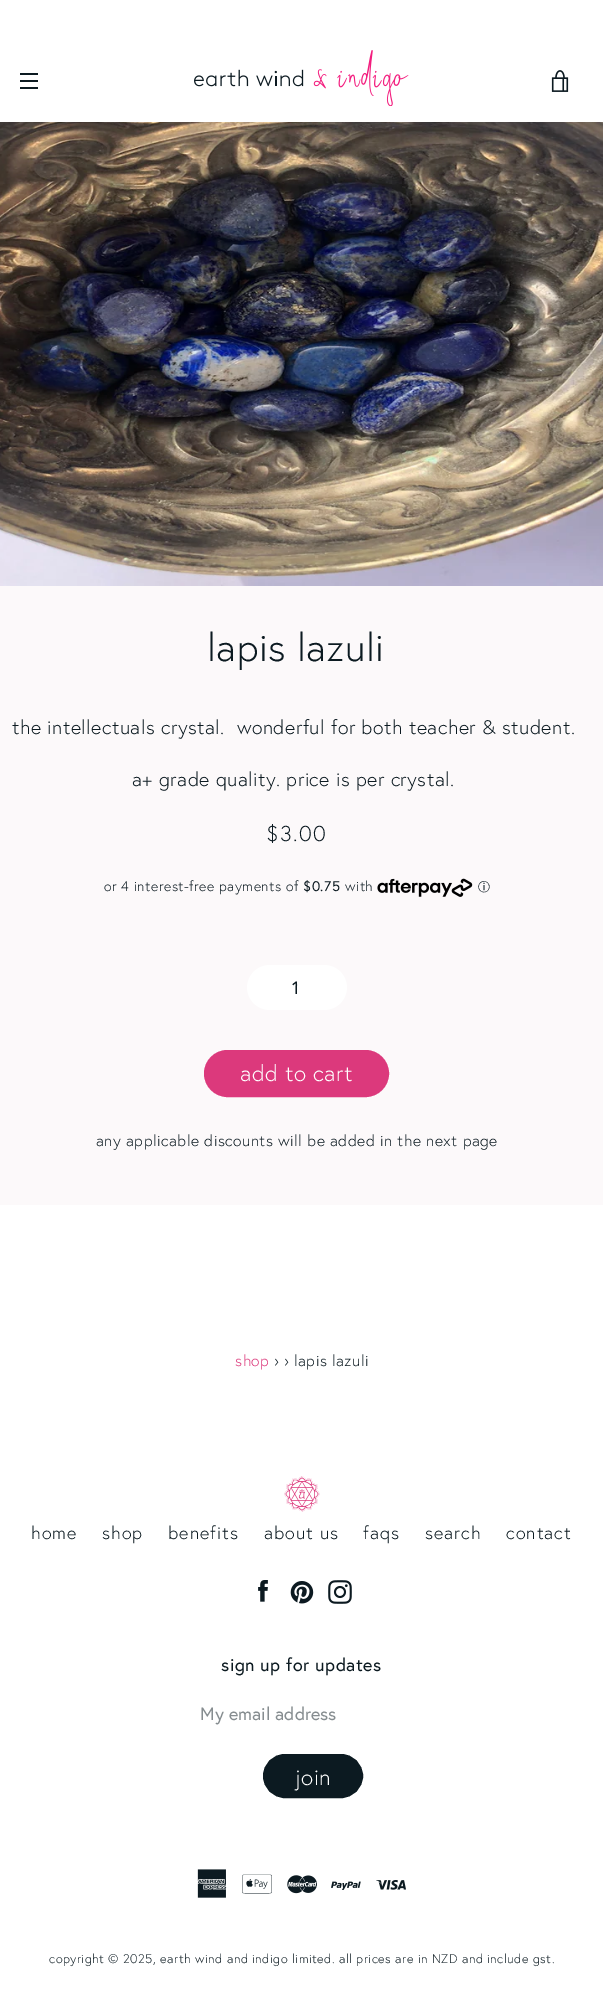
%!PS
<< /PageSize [603 1998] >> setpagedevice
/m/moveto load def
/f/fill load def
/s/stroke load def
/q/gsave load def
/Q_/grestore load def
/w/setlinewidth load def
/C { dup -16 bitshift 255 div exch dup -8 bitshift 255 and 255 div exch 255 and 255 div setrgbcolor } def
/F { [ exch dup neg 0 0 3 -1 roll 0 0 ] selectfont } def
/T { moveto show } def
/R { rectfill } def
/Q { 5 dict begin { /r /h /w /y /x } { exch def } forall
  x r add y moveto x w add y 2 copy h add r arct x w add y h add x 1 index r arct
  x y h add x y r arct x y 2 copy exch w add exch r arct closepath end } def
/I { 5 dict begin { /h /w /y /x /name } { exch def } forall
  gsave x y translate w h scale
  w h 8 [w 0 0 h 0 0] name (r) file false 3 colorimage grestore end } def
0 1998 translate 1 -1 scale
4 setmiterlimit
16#FFFFFF C
0 0 603 1998 R
16#0C1A21 C
20 73 18 2 R
20 80 18 2 R
20 87 18 2 R
(1.rgb) 194 50 215 56 I
(2.rgb) 551 70 18 22 I
16#FCF9FA C
0 586 603 619 R
(3.rgb) 0 122 603 464 I
/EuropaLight-Light 39 F
16#0C1A21 C
207 661 m .5 0 (lapis lazuli) ashow
/EuropaLight-Light 19.6 F
12 734 m .5 0 (the intellectuals crystal.  wonderful for both teacher & student.) ashow
132 786 m .5 0 (a+ grade quality. price is per crystal.) ashow
/EuropaLight-Light 21.5 F
266 841 m 1.5 0 ($3.00) ashow
/EuropaLight-Light 14 F
104 891 m .5 0 (or 4 interest-free payments of) ashow
/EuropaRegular-Regular 14 F
303 891 m .5 0 ($0.75) ashow
/EuropaLight-Light 14 F
345 891 m .5 0 (with) ashow
(4.rgb) 377 878 96 19 I
/WenQuanYiZenHei-Medium 12 F
(ⓘ) 478 891 T
16#FFFFFF C
247 965 100 45 22.5 Q f
/EuropaRegular-Regular 18 F
16#0C1A21 C
(1) 292 994 T
16#DC397C C
205 1051 183 45 22.5 Q q f Q_
2 w
s
/EuropaLight-Light 22.5 F
16#FFFFFF C
240 1081 m .5 0 (add to cart) ashow
/EuropaLight-Light 15.7 F
16#0C1A21 C
96 1146 m .5 0 (any applicable discounts will be added in the next page) ashow
16#DC397C C
235 1366 m .5 0 (shop) ashow
16#0C1A21 C
274 1366 m .5 0 (› › lapis lazuli) ashow
(5.rgb) 284 1476 36 36 I
/EuropaLight-Light 18 F
31 1539 m 1 0 (home) ashow
102 1539 m 1 0 (shop) ashow
168 1539 m 1 0 (benefits) ashow
264 1539 m 1 0 (about us) ashow
363 1539 m 1 0 (faqs) ashow
425 1539 m 1 0 (search) ashow
506 1539 m 1 0 (contact) ashow
(6.rgb) 258 1580 10 22 I
(7.rgb) 290 1581 24 23 I
(8.rgb) 328 1580 24 24 I
/EuropaRegular-Regular 18 F
221 1671 m .5 0 (sign up for updates) ashow
16#868D90 C
(My email address) 200 1720 T
16#0C1A21 C
264 1755 98 42 21 Q q f Q_
s
/EuropaLight-Light 22.5 F
16#FFFFFF C
295 1785 m .5 0 (join) ashow
(9.rgb) 197 1869 30 29 I
(10.rgb) 242 1874 30 20 I
(11.rgb) 287 1875 30 19 I
(12.rgb) 331 1881 30 9 I
(13.rgb) 376 1880 30 10 I
/EuropaLight-Light 12.55 F
16#0C1A21 C
49 1963 m .5 0 (copyright © 2025, earth wind and indigo limited. all prices are in NZD and include gst.) ashow
showpage
